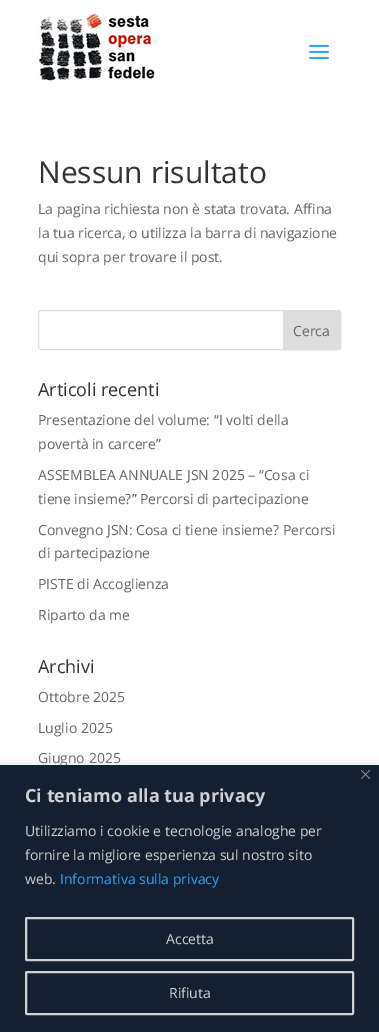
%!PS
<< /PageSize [379 1032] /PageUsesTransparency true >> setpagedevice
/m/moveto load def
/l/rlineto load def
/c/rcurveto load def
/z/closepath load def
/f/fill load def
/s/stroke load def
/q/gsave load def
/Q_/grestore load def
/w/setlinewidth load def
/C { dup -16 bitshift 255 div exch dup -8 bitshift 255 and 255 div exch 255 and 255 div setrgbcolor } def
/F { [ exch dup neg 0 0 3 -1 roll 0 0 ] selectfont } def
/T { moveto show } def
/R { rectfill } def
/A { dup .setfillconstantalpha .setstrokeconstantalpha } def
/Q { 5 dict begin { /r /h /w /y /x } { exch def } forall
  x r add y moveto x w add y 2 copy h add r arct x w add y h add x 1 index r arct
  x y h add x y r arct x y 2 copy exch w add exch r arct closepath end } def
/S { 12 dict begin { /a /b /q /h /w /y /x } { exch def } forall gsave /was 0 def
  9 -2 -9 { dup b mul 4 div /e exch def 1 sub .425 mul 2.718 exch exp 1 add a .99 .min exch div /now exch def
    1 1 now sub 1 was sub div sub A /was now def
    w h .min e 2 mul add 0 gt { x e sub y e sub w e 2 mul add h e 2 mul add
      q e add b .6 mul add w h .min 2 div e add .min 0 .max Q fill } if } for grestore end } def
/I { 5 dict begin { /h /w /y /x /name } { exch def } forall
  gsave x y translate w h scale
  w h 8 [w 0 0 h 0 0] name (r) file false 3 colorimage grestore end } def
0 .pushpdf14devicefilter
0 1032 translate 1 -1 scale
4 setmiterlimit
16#FFFFFF C
0 0 379 1032 R
(1.rgb) 38 14 118 67 I
(2.rgb) 309 44 20 15 I
/OpenSans-Regular 30 F
16#333333 C
(Nessun risultato) 38 183 T
/OpenSans-Regular 14 F
16#666666 C
(La pagina richiesta non è stata trovata. Affina) 38 214 T
(la tua ricerca, o utilizza la barra di navigazione) 38 238 T
(qui sopra per trovare il post.) 38 262 T
16#DDDDDD C
38.5 310.5 302 39 2.5 Q s
283.5 310.5 m 54.5 0 l 1.5 0 2.5 1 2.5 2.5 c 0 34 l 0 1.5 -1 2.5 -2.5 2.5 c -54.5 0 l z q f Q_
s
16#666666 C
(Cerca) 293 336 T
/OpenSans-Regular 18 F
16#333333 C
(Articoli recenti) 38 396 T
/OpenSans-Regular 14 F
16#666666 C
(Presentazione del volume: “I volti della) 38 425 T
(povertà in carcere”) 38 449 T
(ASSEMBLEA ANNUALE JSN 2025 – “Cosa ci) 38 480 T
(tiene insieme?” Percorsi di partecipazione) 38 504 T
(Convegno JSN: Cosa ci tiene insieme? Percorsi) 38 535 T
(di partecipazione) 38 558 T
(PISTE di Accoglienza) 38 589 T
(Riparto da me) 38 620 T
/OpenSans-Regular 18 F
16#333333 C
(Archivi) 38 673 T
/OpenSans-Regular 14 F
16#666666 C
(Ottobre 2025) 38 702 T
(Luglio 2025) 38 733 T
(Giugno 2025) 38 763 T
16#ACABAB C
0 764 379 267 0 5 .3 S
16#151F32 C
0 765 379 267 R
(3.rgb) 361 770 9 9 I
/OpenSans-Bold 18 F
16#D0D0D0 C
(Ci teniamo alla tua privacy) 25 802 T
/OpenSans-Regular 14 F
(Utilizziamo i cookie e tecnologie analoghe per) 25 836 T
(fornire la migliore esperienza sul nostro sito) 25 860 T
(web.) 25 884 T
16#2EA3F2 C
(Informativa sulla privacy) 60 884 T
16#D0D0D0 C
2 w
26 918 327 42 1 Q s
(Accetta) 166 944 T
26 972 327 42 1 Q s
(Rifiuta) 169 998 T
.poppdf14devicefilter showpage
